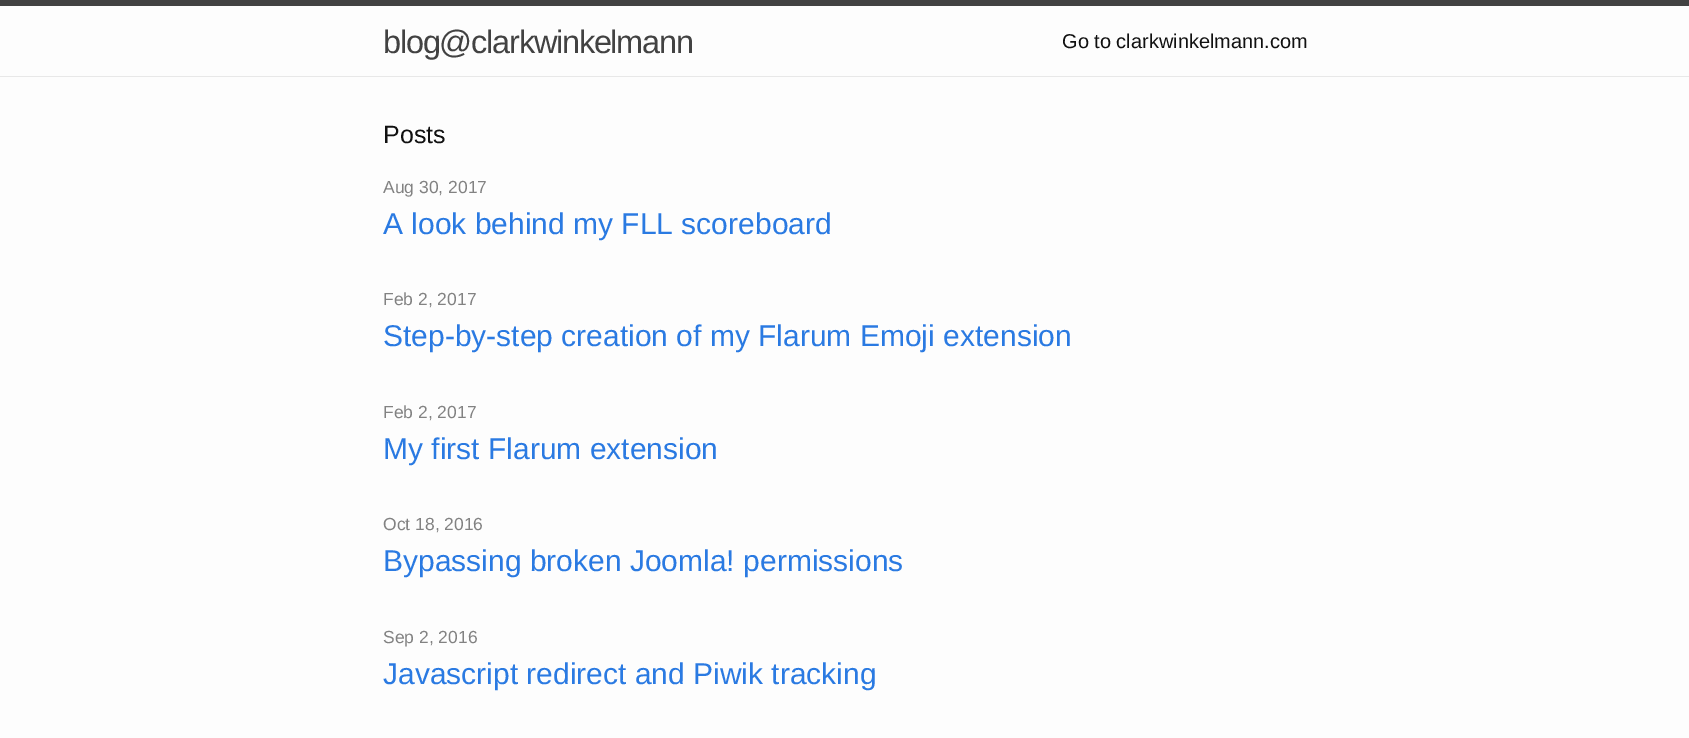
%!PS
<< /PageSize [1689 738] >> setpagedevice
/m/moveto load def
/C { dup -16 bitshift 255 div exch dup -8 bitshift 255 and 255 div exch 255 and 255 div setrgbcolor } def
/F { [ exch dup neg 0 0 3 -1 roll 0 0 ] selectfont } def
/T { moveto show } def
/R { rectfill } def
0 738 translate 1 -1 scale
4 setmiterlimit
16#FDFDFD C
0 0 1689 738 R
16#424242 C
0 0 1689 6 R
16#E8E8E8 C
0 76 1689 1 R
/LiberationSans-Regular 32.5 F
16#424242 C
383 53 m -1.25 0 (blog@clarkwinkelmann) ashow
/LiberationSans-Regular 20 F
16#111111 C
(Go to clarkwinkelmann.com) 1062 48 T
/LiberationSans-Regular 25 F
(Posts) 383 143 T
/LiberationSans-Regular 17.5 F
16#828282 C
(Aug 30, 2017) 383 193 T
/LiberationSans-Regular 30 F
16#2A7AE2 C
(A look behind my FLL scoreboard) 383 234 T
/LiberationSans-Regular 17.5 F
16#828282 C
(Feb 2, 2017) 383 305 T
/LiberationSans-Regular 30 F
16#2A7AE2 C
(Step-by-step creation of my Flarum Emoji extension) 383 346 T
/LiberationSans-Regular 17.5 F
16#828282 C
(Feb 2, 2017) 383 418 T
/LiberationSans-Regular 30 F
16#2A7AE2 C
(My first Flarum extension) 383 459 T
/LiberationSans-Regular 17.5 F
16#828282 C
(Oct 18, 2016) 383 530 T
/LiberationSans-Regular 30 F
16#2A7AE2 C
(Bypassing broken Joomla! permissions) 383 571 T
/LiberationSans-Regular 17.5 F
16#828282 C
(Sep 2, 2016) 383 643 T
/LiberationSans-Regular 30 F
16#2A7AE2 C
(Javascript redirect and Piwik tracking) 383 684 T
showpage
